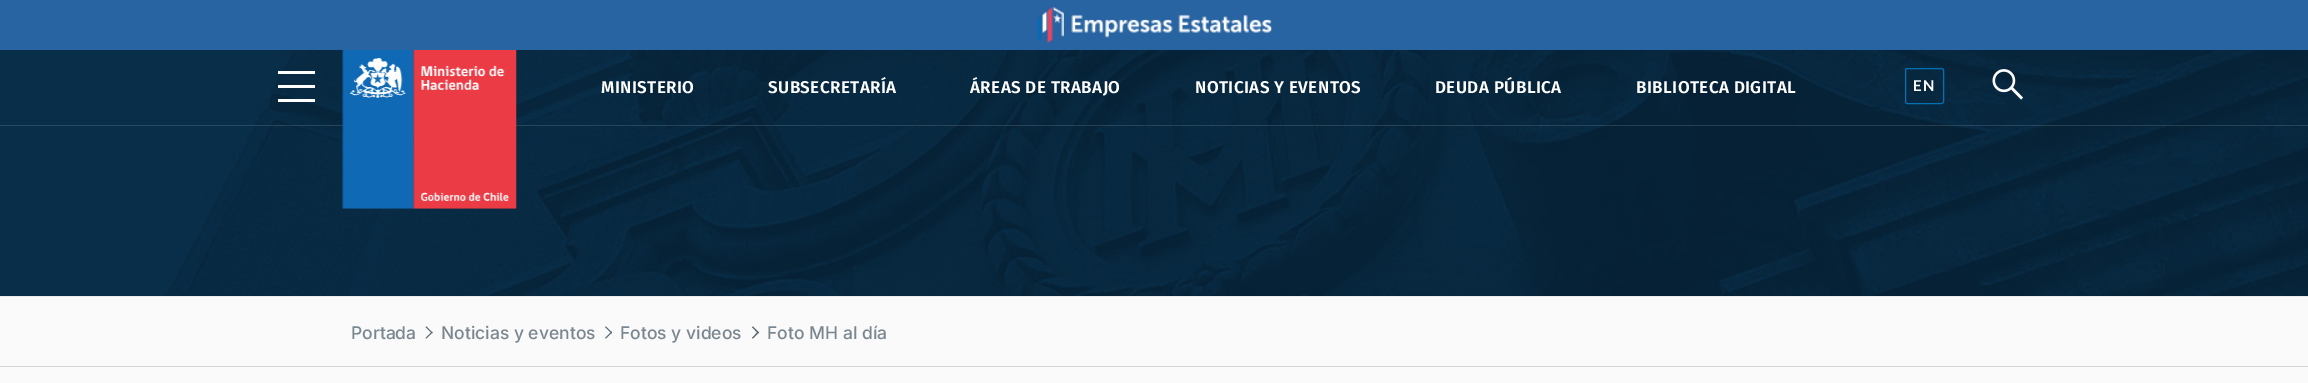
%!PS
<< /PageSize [2308 383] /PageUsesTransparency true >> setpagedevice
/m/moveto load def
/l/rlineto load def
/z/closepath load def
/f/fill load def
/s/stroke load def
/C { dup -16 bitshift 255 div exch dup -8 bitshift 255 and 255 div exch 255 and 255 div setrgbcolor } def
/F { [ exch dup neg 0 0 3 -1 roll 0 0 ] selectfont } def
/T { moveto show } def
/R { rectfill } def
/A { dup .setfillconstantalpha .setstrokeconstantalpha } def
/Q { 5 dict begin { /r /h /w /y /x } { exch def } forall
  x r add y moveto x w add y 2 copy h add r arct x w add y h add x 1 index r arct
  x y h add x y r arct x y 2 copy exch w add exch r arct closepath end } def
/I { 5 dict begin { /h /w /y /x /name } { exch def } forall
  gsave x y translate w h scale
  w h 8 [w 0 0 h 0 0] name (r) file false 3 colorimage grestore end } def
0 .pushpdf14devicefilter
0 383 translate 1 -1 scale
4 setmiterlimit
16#FAFAFA C
0 0 2308 383 R
16#2863A2 C
0 0 2308 50 R
(1.rgb) 1037 7 235 36 I
(4.rgb) 0 50 2308 247 I
0.13 A
16#FFFFFF C
0 125 2308 1 R
1 A
(2.rgb) 342 50 175 159 I
/FiraSans-SemiBold 17 F
601 93 m .4 0 (MINISTERIO) ashow
768 93 m .4 0 (SUBSECRETARÍA) ashow
970 93 m .4 0 (ÁREAS DE TRABAJO) ashow
1195 93 m .4 0 (NOTICIAS Y EVENTOS) ashow
1435 93 m .4 0 (DEUDA PÚBLICA) ashow
1636 93 m .4 0 (BIBLIOTECA DIGITAL) ashow
278 71 37 3 R
278 85 37 3 R
278 99 37 3 R
0.6 A
16#00A1FF C
1905.5 68.5 38 35 2 Q s
/Lato-Bold 15 F
1 A
16#FFFFFF C
1913 91 m 1 0 (EN) ashow
(3.rgb) 1992 69 31 31 I
/Inter-Medium 17.5 F
16#7A8790 C
(Portada) 351 339 T
16#576873 C
425.5 327 m 1 -.5 l 6 6 l -.5 1 l z f
425.5 338 m 6.5 -6.5 l .5 1 l -6 6 l z f
16#7A8790 C
(Noticias y eventos) 441 339 T
16#576873 C
605 327 m 1 -.5 l 6 6 l -.5 1 l z f
605 338 m 6.5 -6.5 l .5 1 l -6 6 l z f
16#7A8790 C
(Fotos y videos) 620 339 T
16#576873 C
752 327 m 1 -.5 l 6 6 l -1 1 l z f
752 338 m 6 -6.5 l 1 1 l -6 6 l z f
16#7A8790 C
(Foto MH al día) 767 339 T
16#D6D6D6 C
0 366 2308 1 R
.poppdf14devicefilter showpage
